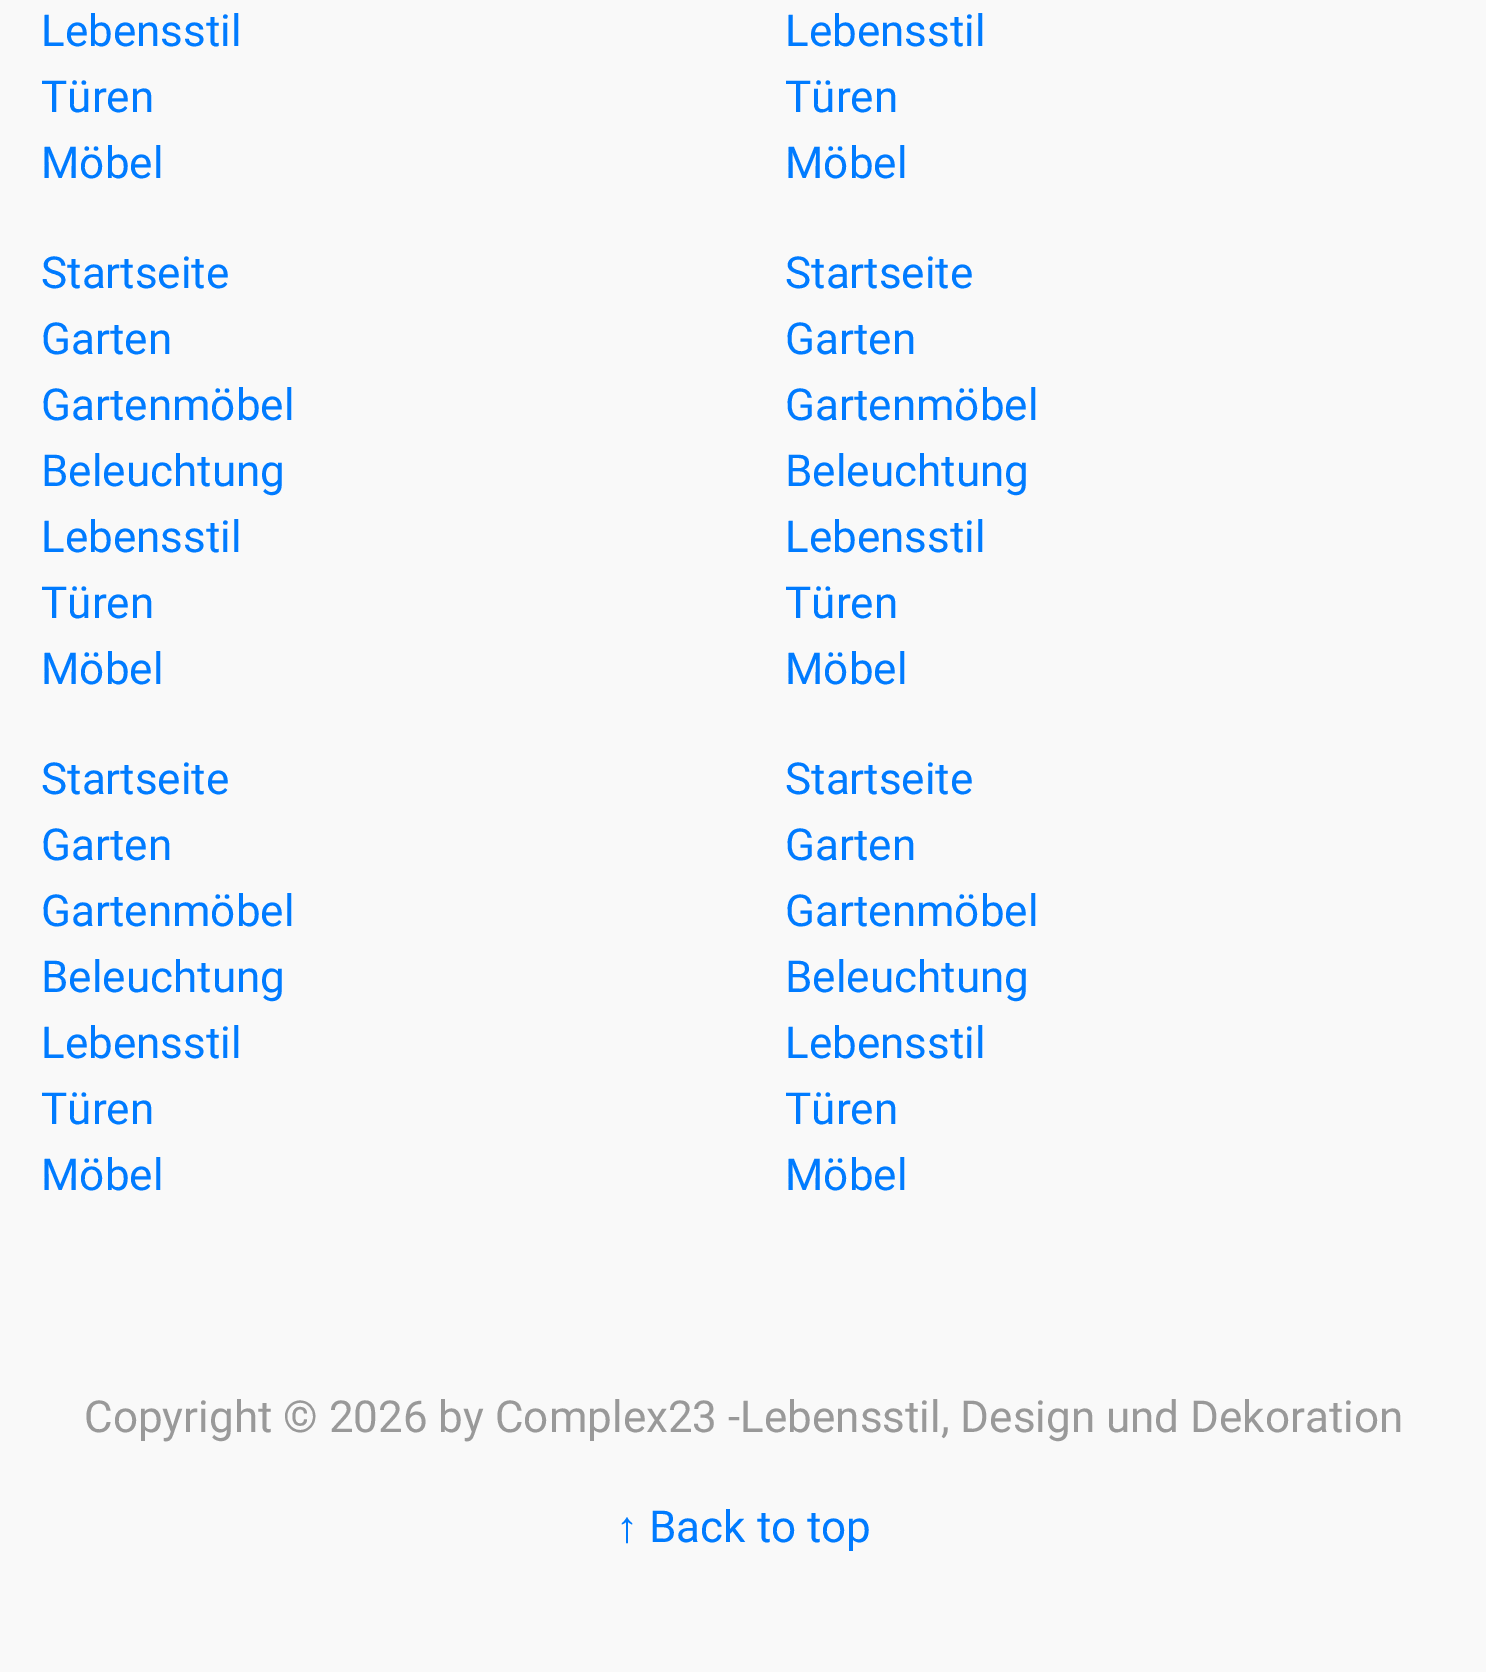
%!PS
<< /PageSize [1486 1672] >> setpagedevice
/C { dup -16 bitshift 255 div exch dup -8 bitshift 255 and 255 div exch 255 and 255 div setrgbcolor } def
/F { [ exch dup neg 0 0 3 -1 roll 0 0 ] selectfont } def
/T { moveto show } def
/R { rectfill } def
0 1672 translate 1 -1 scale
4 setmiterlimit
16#F9F9F9 C
0 0 1486 1672 R
/Roboto-Regular 44 F
16#007BFF C
(Lebensstil) 41 46 T
(Türen) 41 112 T
(Möbel) 41 178 T
(Lebensstil) 785 46 T
(Türen) 785 112 T
(Möbel) 785 178 T
(Startseite) 41 288 T
(Garten) 41 354 T
(Gartenmöbel) 41 420 T
(Beleuchtung) 41 486 T
(Lebensstil) 41 552 T
(Türen) 41 618 T
(Möbel) 41 684 T
(Startseite) 785 288 T
(Garten) 785 354 T
(Gartenmöbel) 785 420 T
(Beleuchtung) 785 486 T
(Lebensstil) 785 552 T
(Türen) 785 618 T
(Möbel) 785 684 T
(Startseite) 41 794 T
(Garten) 41 860 T
(Gartenmöbel) 41 926 T
(Beleuchtung) 41 992 T
(Lebensstil) 41 1058 T
(Türen) 41 1124 T
(Möbel) 41 1190 T
(Startseite) 785 794 T
(Garten) 785 860 T
(Gartenmöbel) 785 926 T
(Beleuchtung) 785 992 T
(Lebensstil) 785 1058 T
(Türen) 785 1124 T
(Möbel) 785 1190 T
16#999999 C
(Copyright © 2026 by Complex23 -Lebensstil, Design und Dekoration) 84 1432 T
/LiberationSans-Regular 44 F
16#007BFF C
(↑) 616 1542 T
/Roboto-Regular 44 F
(Back to top) 649 1542 T
showpage
